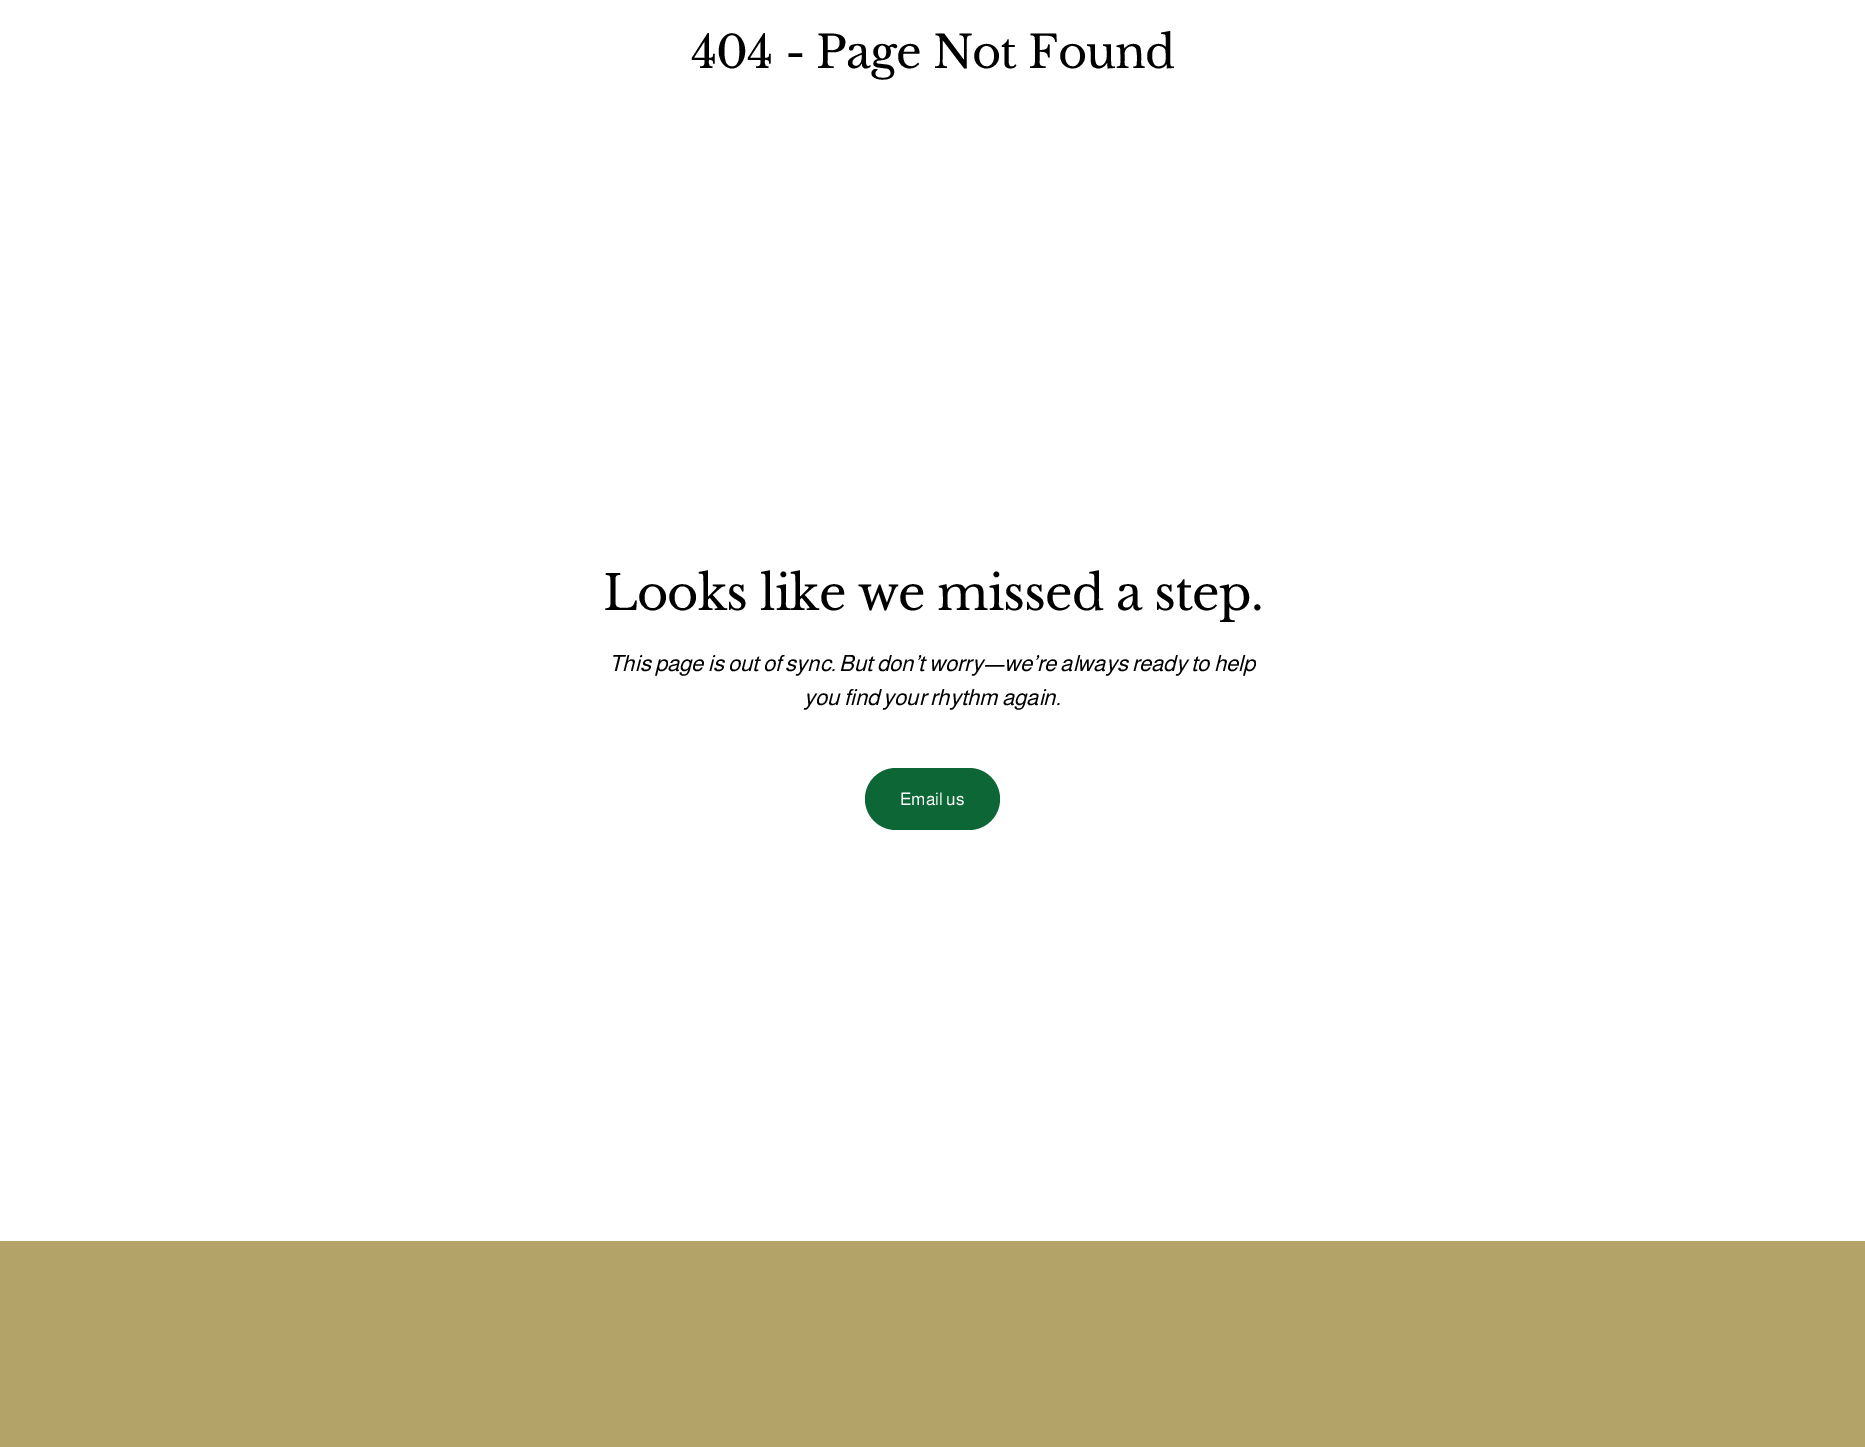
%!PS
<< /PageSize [1865 1447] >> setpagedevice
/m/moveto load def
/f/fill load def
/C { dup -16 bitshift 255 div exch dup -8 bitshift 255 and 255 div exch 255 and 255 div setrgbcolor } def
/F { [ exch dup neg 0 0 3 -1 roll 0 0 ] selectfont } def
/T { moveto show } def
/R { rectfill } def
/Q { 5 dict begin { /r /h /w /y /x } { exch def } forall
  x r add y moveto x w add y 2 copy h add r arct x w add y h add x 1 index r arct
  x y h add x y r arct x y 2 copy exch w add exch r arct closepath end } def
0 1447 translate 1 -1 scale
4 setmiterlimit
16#B3A369 C
0 0 1865 1447 R
16#FFFFFF C
0 0 1865 1241 R
/LibreBaskerville-Regular 44.75 F
16#000000 C
691 68 m -.9 0 (404 - Page Not Found) ashow
/LibreBaskerville-Regular 48 F
603 610 m -.95 0 (Looks like we missed a step.) ashow
/Almarai-Italic 22.4 F
(This page is out of sync. But don’t worry—we’re always ready to help) 609 671 T
(you find your rhythm again.) 804 705 T
16#0D6635 C
865 768 135 62 31 Q f
/Almarai-Regular 17.5 F
16#FFFFFF C
(Email us) 900 805 T
showpage
